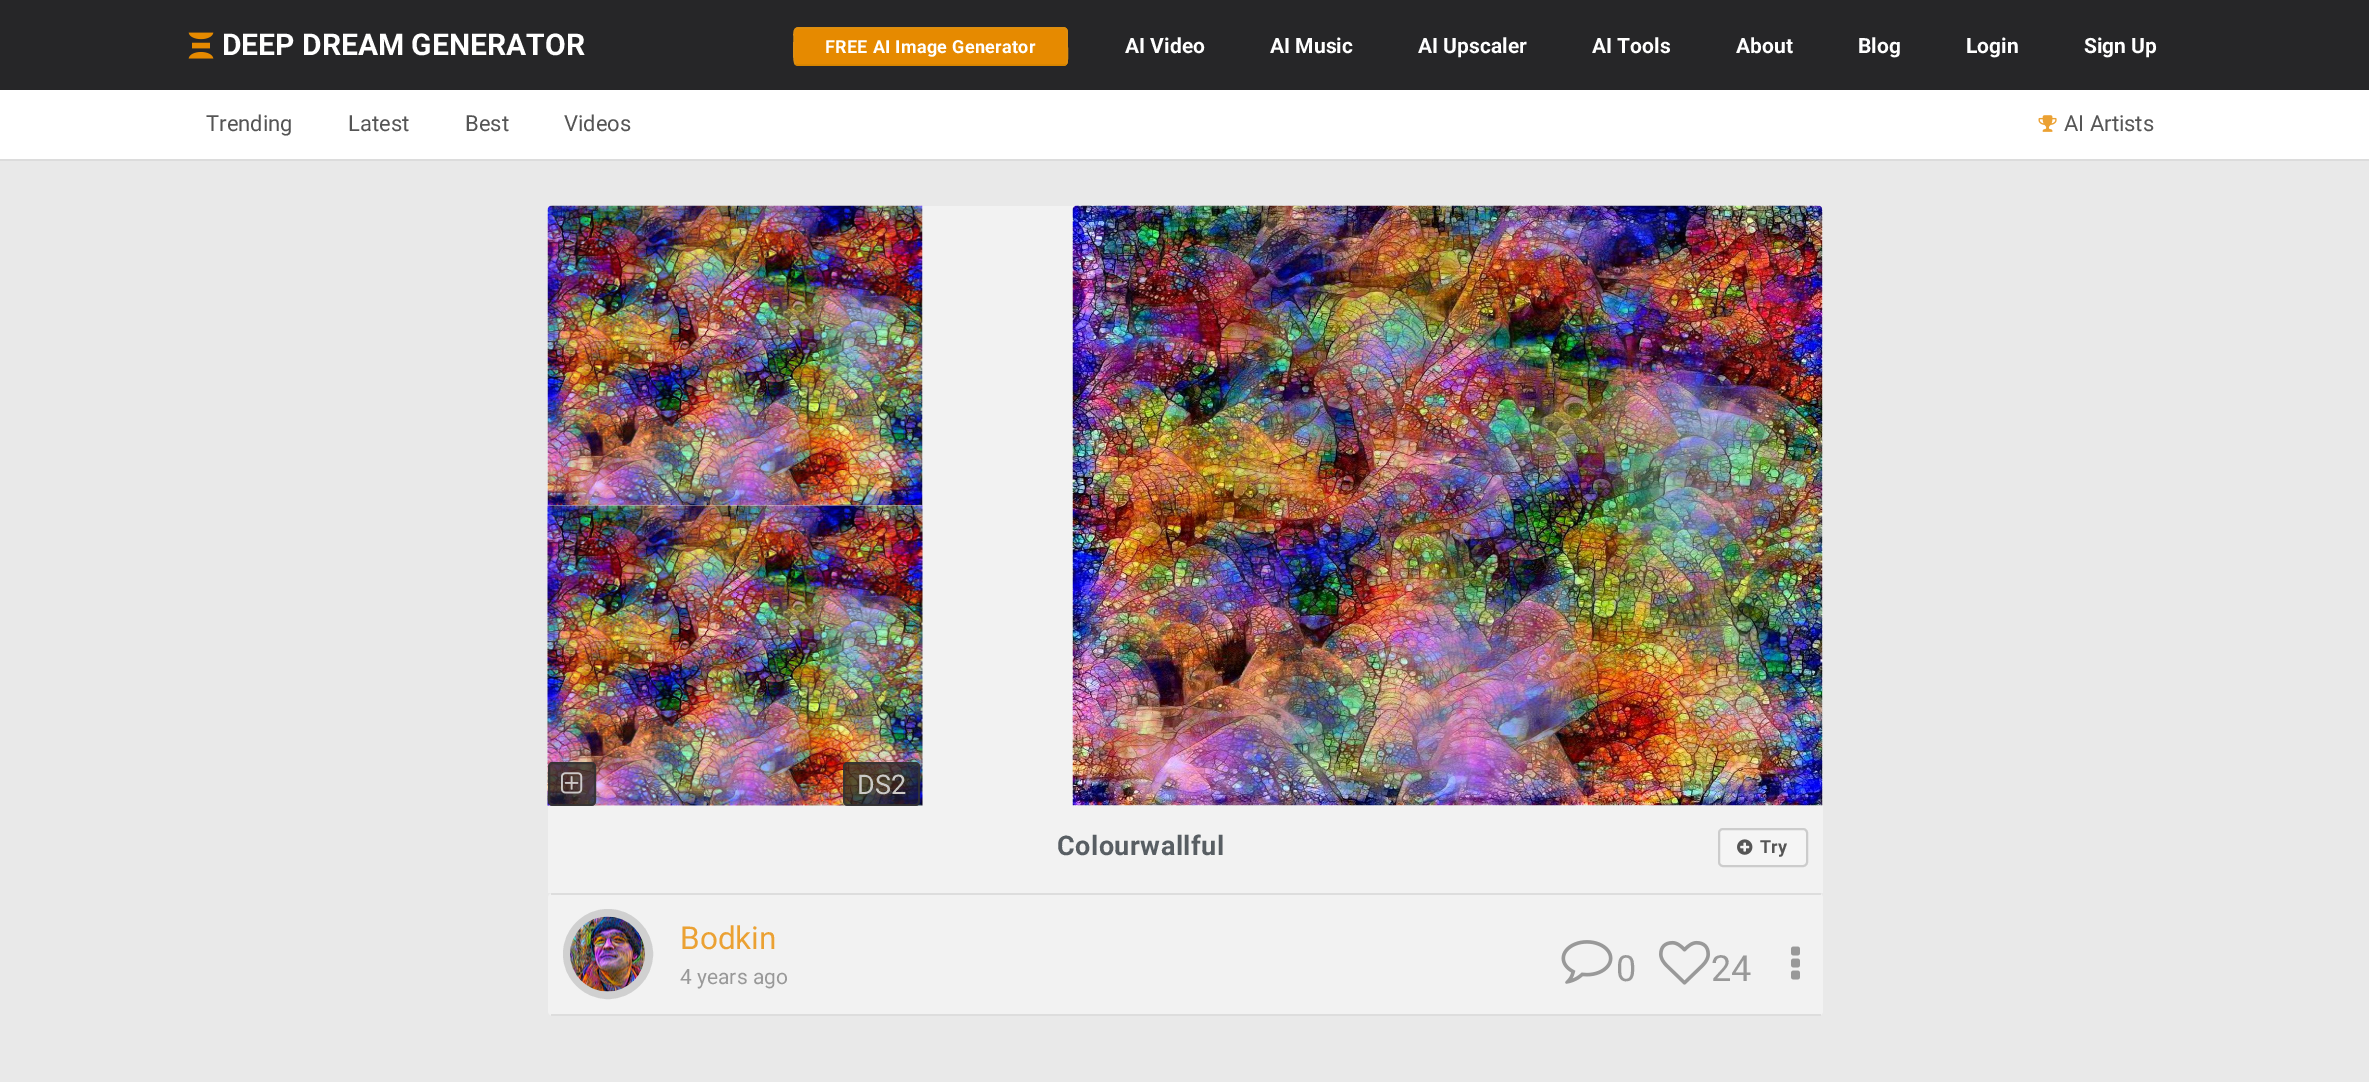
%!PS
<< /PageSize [2369 1082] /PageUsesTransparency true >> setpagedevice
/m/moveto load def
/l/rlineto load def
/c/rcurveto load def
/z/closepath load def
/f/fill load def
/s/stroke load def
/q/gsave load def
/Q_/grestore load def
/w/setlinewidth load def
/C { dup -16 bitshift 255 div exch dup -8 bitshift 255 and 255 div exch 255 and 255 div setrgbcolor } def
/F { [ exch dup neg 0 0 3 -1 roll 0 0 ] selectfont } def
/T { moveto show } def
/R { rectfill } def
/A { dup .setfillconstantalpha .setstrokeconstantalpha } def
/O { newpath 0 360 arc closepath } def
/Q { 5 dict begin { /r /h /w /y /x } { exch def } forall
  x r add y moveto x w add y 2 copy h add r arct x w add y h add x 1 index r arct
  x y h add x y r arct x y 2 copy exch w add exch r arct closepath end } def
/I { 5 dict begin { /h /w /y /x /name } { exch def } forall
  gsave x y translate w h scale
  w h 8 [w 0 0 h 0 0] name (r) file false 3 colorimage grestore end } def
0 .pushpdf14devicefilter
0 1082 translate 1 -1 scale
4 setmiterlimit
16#E9E9E9 C
0 0 2369 1082 R
16#262628 C
0 0 2369 90 R
(1.rgb) 188 32 26 27 I
/Roboto-Bold 30 F
16#FFFFFF C
(DEEP DREAM GENERATOR) 222 55 T
16#E68A00 C
794 27 274 39 5 Q f
16#D68400 C
1.5 w
1066 64 m -.5 1 -1.5 1 -2.5 1 c -265.5 0 l -1 0 -2 0 -2.5 -1 c s
16#DD8E11 C
795.5 64 m -2.5 -2.5 -1.5 -18.5 -1.5 -22.5 c 0 -5 l 0 -3 -.5 -8.5 4 -8.5 c 265.5 0 l 4.5 0 3.5 5.5 3.5 8.5 c 0 5 l 0 4 1.5 20 -1 22.5 c s
/Roboto-Bold 18 F
16#FFFFFF C
825 53 m .3 0 (FREE AI Image Generator) ashow
/Roboto-Bold 21 F
(AI Video) 1125 53 T
(AI Music) 1270 53 T
(AI Upscaler) 1418 53 T
(AI Tools) 1592 53 T
(About) 1736 53 T
(Blog) 1858 53 T
(Login) 1966 53 T
(Sign Up) 2084 53 T
0 90 2369 69 R
16#DCDCDC C
0 159 2369 2 R
/Roboto-Regular 22 F
16#555555 C
(Trending) 206 131 T
(Latest) 348 131 T
(Best) 465 131 T
(Videos) 564 131 T
(2.rgb) 2038 115 19 17 I
(AI Artists) 2064 131 T
16#F2F2F2 C
553 206 m 1265 0 l 3 0 5 2 5 5 c 0 595 l -1275 0 l 0 -595 l 0 -3 2 -5 5 -5 c z f
(3.rgb) 547 205 376 301 I
(4.rgb) 1072 205 751 601 I
(5.rgb) 547 505 376 301 I
0.72 A
16#1E1E1E C
548 762 48 44 5 Q f
0.8 A
16#333333 C
2 w
549 763 46 42 4 Q s
1 A
(6.rgb) 561 772 22 22 I
0.72 A
16#1E1E1E C
843 762 77 44 5 Q f
0.8 A
16#333333 C
844 763 75 42 4 Q s
/Roboto-Regular 27 F
1 A
16#CCCAC7 C
(DS2) 857 794 T
16#F2F2F2 C
548 806 1275 87 R
/Roboto-Bold 27 F
16#585E63 C
1057 855 m .5 0 (Colourwallful) ashow
16#F5F5F5 C
1719 829 88 37 4 Q q f Q_
16#CCCCCC C
s
(7.rgb) 1737 839 16 16 I
/Roboto-Bold 18 F
16#555555 C
1760 853 m .3 0 (Try) ashow
16#F2F2F2 C
548 893 1275 123 5 Q f
16#DDDDDD C
551 893 1270 2 R
551 1014 1270 2 R
16#D0D0D0 C
8 w
608 954 41 O s
(8.rgb) 570 916 75 76 I
/Roboto-Regular 31.5 F
16#EBA133 C
(Bodkin) 680 949 T
/Roboto-Regular 21 F
16#999999 C
(4 years ago) 680 984 T
(9.rgb) 1561 940 52 44 I
/Roboto-Regular 36 F
(0) 1616 981 T
(10.rgb) 1659 940 51 45 I
(24) 1711 981 T
(11.rgb) 1791 946 9 34 I
.poppdf14devicefilter showpage
